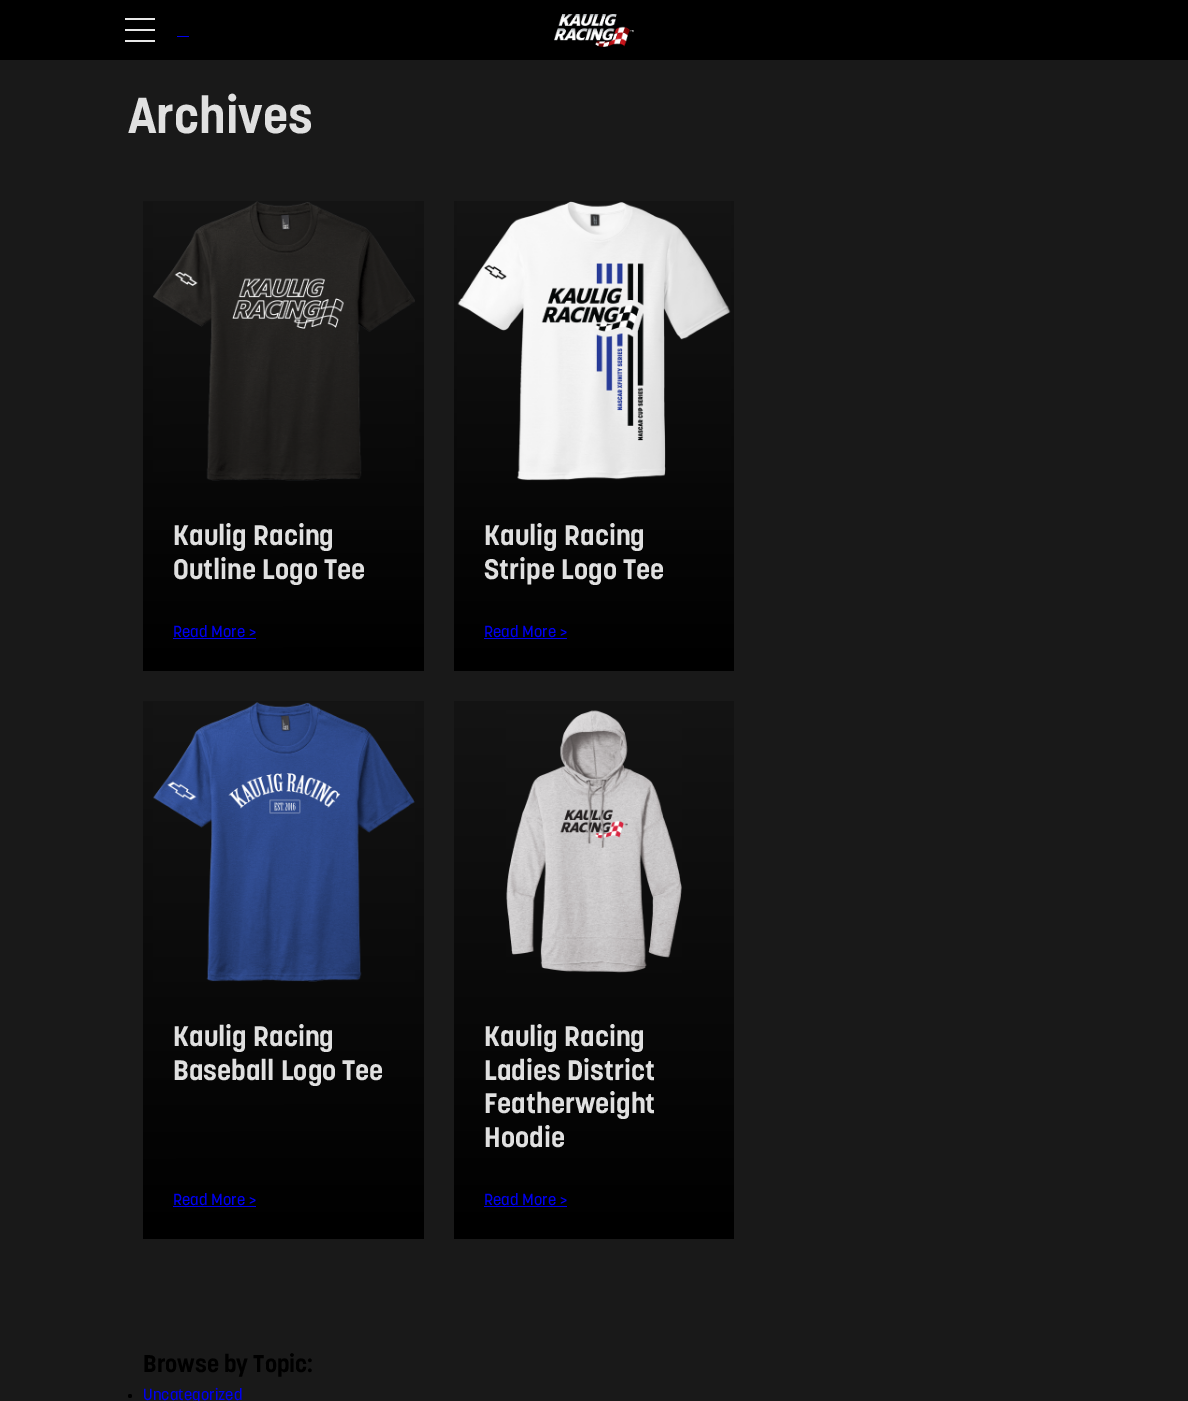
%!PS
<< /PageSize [1188 1401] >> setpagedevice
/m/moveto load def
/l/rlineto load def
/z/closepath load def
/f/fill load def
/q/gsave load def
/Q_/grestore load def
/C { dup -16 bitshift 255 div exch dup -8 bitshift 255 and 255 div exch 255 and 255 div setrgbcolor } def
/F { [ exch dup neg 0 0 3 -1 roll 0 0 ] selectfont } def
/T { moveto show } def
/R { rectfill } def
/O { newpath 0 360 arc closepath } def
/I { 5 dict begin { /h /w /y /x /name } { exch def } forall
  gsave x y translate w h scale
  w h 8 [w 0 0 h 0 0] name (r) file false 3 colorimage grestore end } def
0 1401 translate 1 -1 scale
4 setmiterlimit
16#191919 C
0 0 1188 1401 R
16#000000 C
0 0 1188 60 R
16#E8E8E8 C
125 18 30 2 R
125 29 30 2 R
125 40 30 2 R
16#0000EE C
177 36 12 1 R
(1.rgb) 554 14 80 33 I
/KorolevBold-Bold 50 F
16#E0E0E0 C
(Archives) 128 133 T
q 143 201 m 281 0 l 0 470 l -281 0 l z clip newpath
<< /ShadingType 2 /ColorSpace /DeviceRGB /Coords [283 201 284 671] /Extend [true true] /Function << /FunctionType 2 /Domain [0 1] /C0 [.078 .078 .078] /C1 [0 0 0] /N 1 >> >> shfill Q_
(2.rgb) 153 201 262 280 I
/KorolevBold-Bold 28 F
(Kaulig Racing) 173 545 T
(Outline Logo Tee) 173 579 T
/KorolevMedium-Medium 16 F
16#0000EE C
(Read More >) 173 637 T
173 638 83 1 R
q 454 201 m 280 0 l 0 470 l -280 0 l z clip newpath
<< /ShadingType 2 /ColorSpace /DeviceRGB /Coords [594 201 594 671] /Extend [true true] /Function << /FunctionType 2 /Domain [0 1] /C0 [.078 .078 .078] /C1 [0 0 0] /N 1 >> >> shfill Q_
(3.rgb) 457 201 274 280 I
/KorolevBold-Bold 28 F
16#E0E0E0 C
(Kaulig Racing) 484 545 T
(Stripe Logo Tee) 484 579 T
/KorolevMedium-Medium 16 F
16#0000EE C
(Read More >) 484 637 T
484 638 83 1 R
q 143 701 m 281 0 l 0 538 l -281 0 l z clip newpath
<< /ShadingType 2 /ColorSpace /DeviceRGB /Coords [283 701 284 1239] /Extend [true true] /Function << /FunctionType 2 /Domain [0 1] /C0 [.078 .078 .078] /C1 [0 0 0] /N 1 >> >> shfill Q_
(4.rgb) 153 702 262 280 I
/KorolevBold-Bold 28 F
16#E0E0E0 C
(Kaulig Racing) 173 1046 T
(Baseball Logo Tee) 173 1080 T
/KorolevMedium-Medium 16 F
16#0000EE C
(Read More >) 173 1205 T
173 1206 83 1 R
q 454 701 m 280 0 l 0 538 l -280 0 l z clip newpath
<< /ShadingType 2 /ColorSpace /DeviceRGB /Coords [594 701 594 1239] /Extend [true true] /Function << /FunctionType 2 /Domain [0 1] /C0 [.078 .078 .078] /C1 [0 0 0] /N 1 >> >> shfill Q_
(5.rgb) 506 710 176 263 I
/KorolevBold-Bold 28 F
16#E0E0E0 C
(Kaulig Racing) 484 1046 T
(Ladies District) 484 1080 T
(Featherweight) 484 1113 T
(Hoodie) 484 1147 T
/KorolevMedium-Medium 16 F
16#0000EE C
(Read More >) 484 1205 T
484 1206 83 1 R
/KorolevBold-Bold 24 F
16#000000 C
(Browse by Topic:) 143 1372 T
130 1396 2 O f
/KorolevMedium-Medium 16 F
16#0000EE C
(Uncategorized) 143 1400 T
showpage
